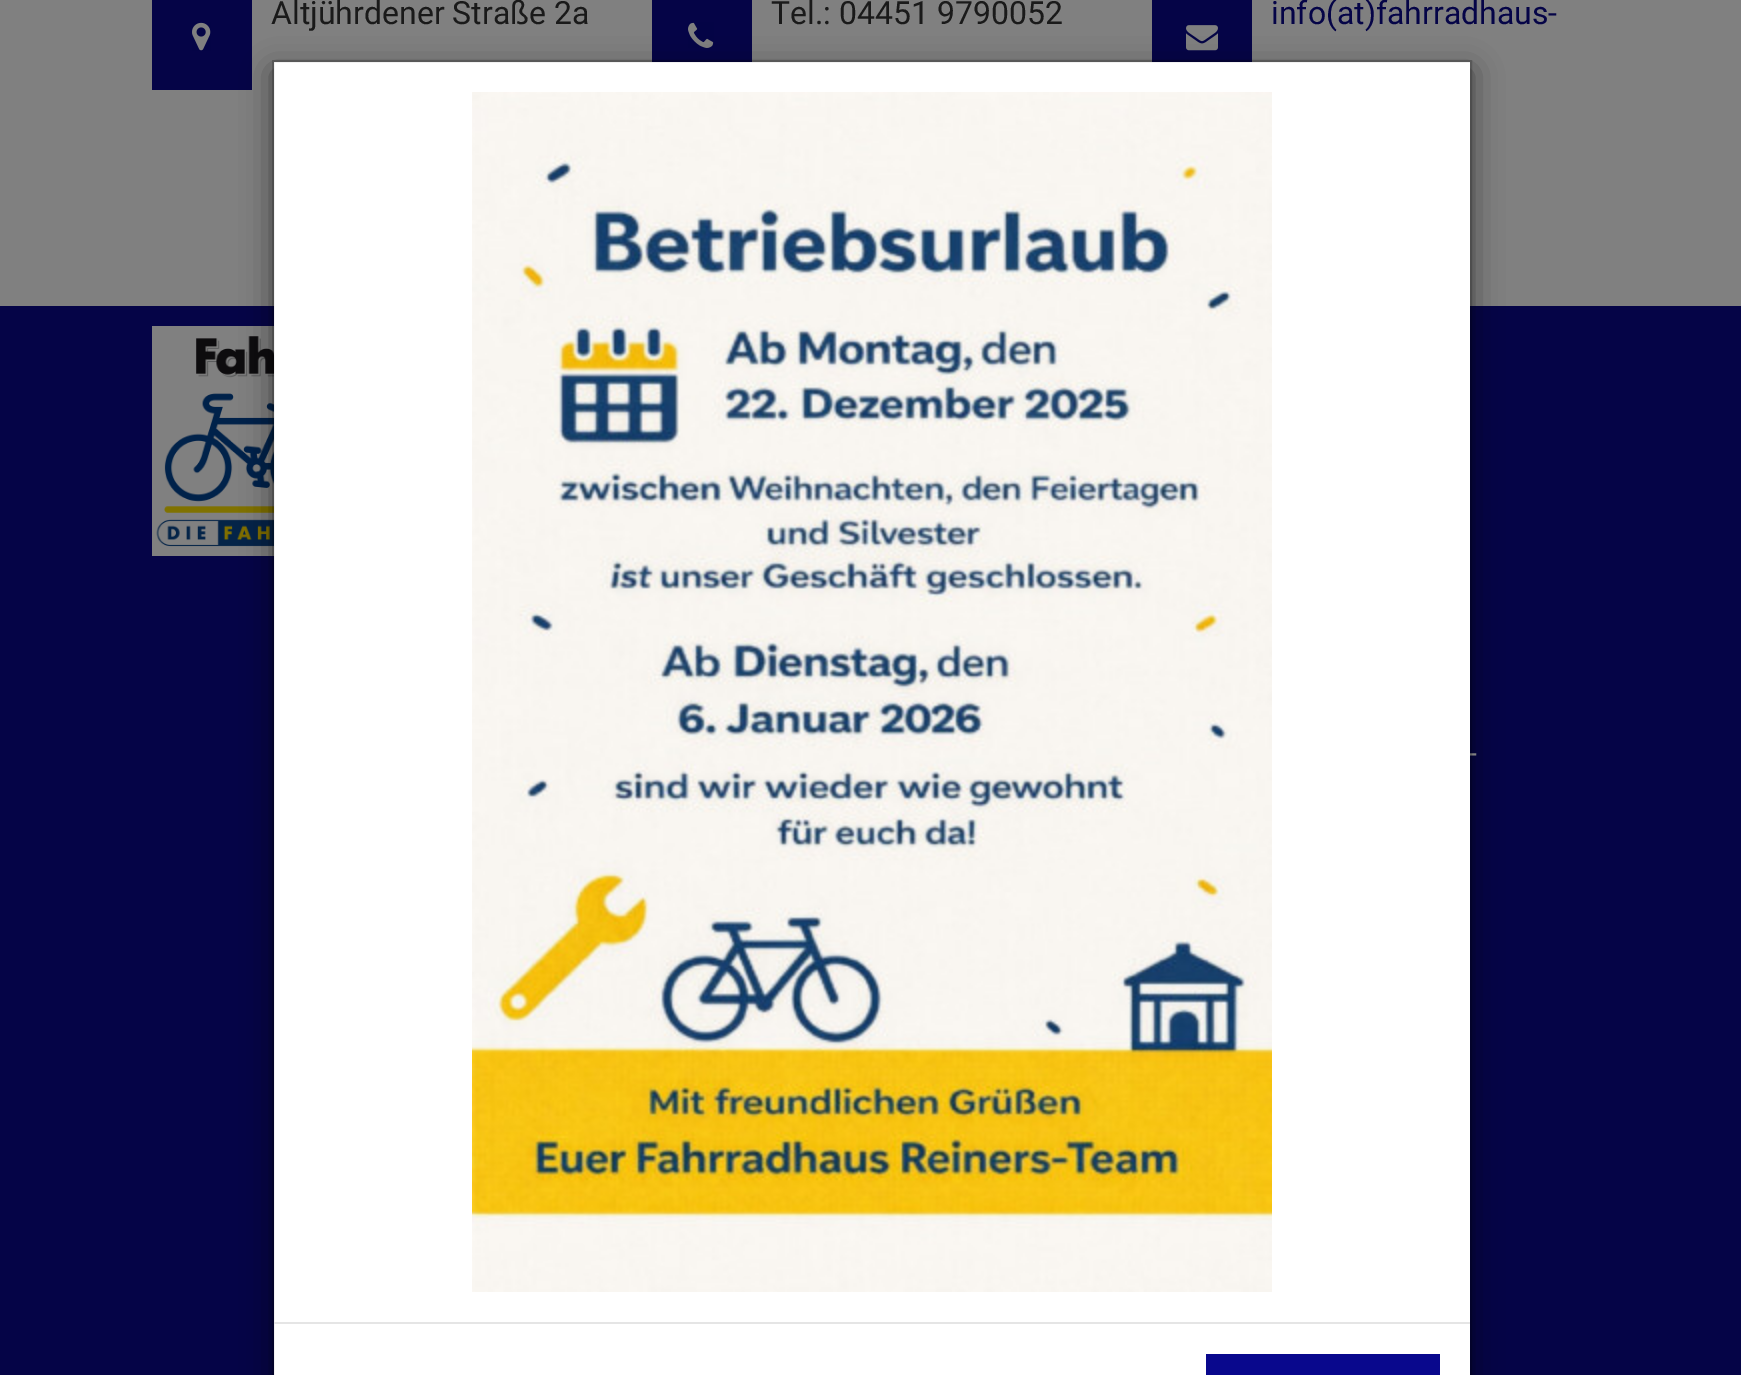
%!PS
<< /PageSize [1741 1375] /PageUsesTransparency true >> setpagedevice
/w/setlinewidth load def
/C { dup -16 bitshift 255 div exch dup -8 bitshift 255 and 255 div exch 255 and 255 div setrgbcolor } def
/F { [ exch dup neg 0 0 3 -1 roll 0 0 ] selectfont } def
/T { moveto show } def
/R { rectfill } def
/A { dup .setfillconstantalpha .setstrokeconstantalpha } def
/Q { 5 dict begin { /r /h /w /y /x } { exch def } forall
  x r add y moveto x w add y 2 copy h add r arct x w add y h add x 1 index r arct
  x y h add x y r arct x y 2 copy exch w add exch r arct closepath end } def
/S { 12 dict begin { /a /b /q /h /w /y /x } { exch def } forall gsave /was 0 def
  9 -2 -9 { dup b mul 4 div /e exch def 1 sub .425 mul 2.718 exch exp 1 add a .99 .min exch div /now exch def
    1 1 now sub 1 was sub div sub A /was now def
    w h .min e 2 mul add 0 gt { x e sub y e sub w e 2 mul add h e 2 mul add
      q e add b .6 mul add w h .min 2 div e add .min 0 .max Q fill } if } for grestore end } def
/I { 5 dict begin { /h /w /y /x /name } { exch def } forall
  gsave x y translate w h scale
  w h 8 [w 0 0 h 0 0] name (r) file false 3 colorimage grestore end } def
0 .pushpdf14devicefilter
0 1375 translate 1 -1 scale
4 setmiterlimit
16#808080 C
0 0 1741 1375 R
16#050447 C
152 0 100 90 R
(1.rgb) 192 22 19 29 I
/Roboto-Regular 32 F
16#1A1A1A C
(Altjührdener Straße 2a) 271 24 T
16#050447 C
652 0 100 62 R
(2.rgb) 688 22 26 26 I
16#1A1A1A C
(Tel.: 04451 9790052) 771 24 T
16#050447 C
1152 0 100 62 R
(3.rgb) 1186 25 32 26 I
(info\(at\)fahrradhaus-) 1271 24 T
0 306 1741 1069 R
(5.rgb) 152 326 122 230 I
16#000000 C
272 70 1200 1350 0 15 .5 S
16#808080 C
(-) 1468 764 T
16#FFFFFF C
274 62 1196 1313 R
0.2 A
16#000000 C
2 w
273 61 1198 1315 rectstroke
1 A
(4.rgb) 472 92 800 1200 I
16#E5E5E5 C
274 1322 1196 2 R
16#09088D C
1206 1354 234 21 R
.poppdf14devicefilter showpage
